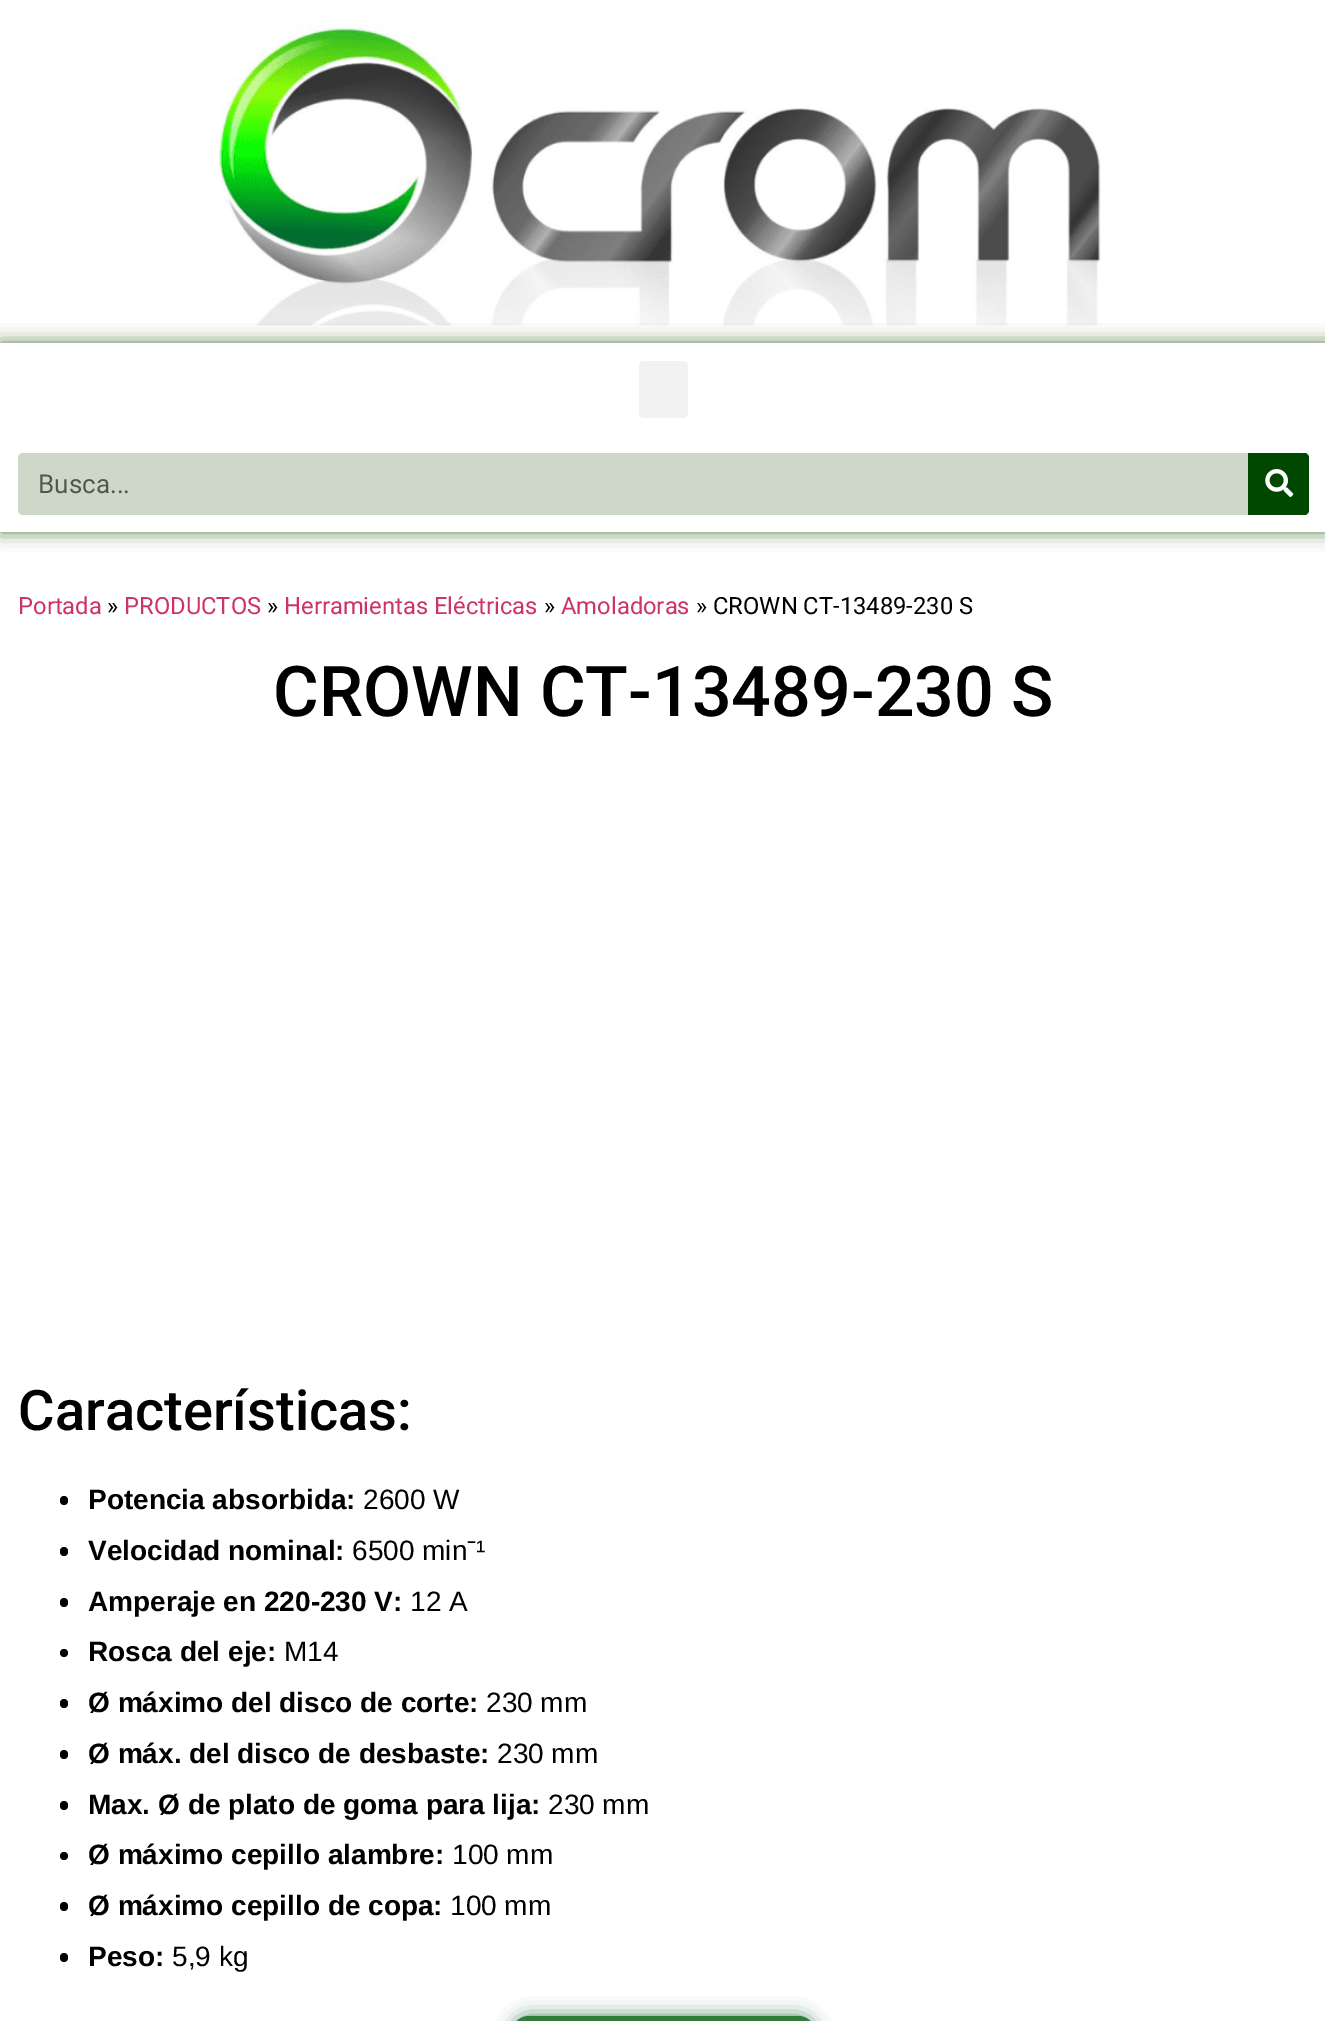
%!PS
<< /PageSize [1325 2021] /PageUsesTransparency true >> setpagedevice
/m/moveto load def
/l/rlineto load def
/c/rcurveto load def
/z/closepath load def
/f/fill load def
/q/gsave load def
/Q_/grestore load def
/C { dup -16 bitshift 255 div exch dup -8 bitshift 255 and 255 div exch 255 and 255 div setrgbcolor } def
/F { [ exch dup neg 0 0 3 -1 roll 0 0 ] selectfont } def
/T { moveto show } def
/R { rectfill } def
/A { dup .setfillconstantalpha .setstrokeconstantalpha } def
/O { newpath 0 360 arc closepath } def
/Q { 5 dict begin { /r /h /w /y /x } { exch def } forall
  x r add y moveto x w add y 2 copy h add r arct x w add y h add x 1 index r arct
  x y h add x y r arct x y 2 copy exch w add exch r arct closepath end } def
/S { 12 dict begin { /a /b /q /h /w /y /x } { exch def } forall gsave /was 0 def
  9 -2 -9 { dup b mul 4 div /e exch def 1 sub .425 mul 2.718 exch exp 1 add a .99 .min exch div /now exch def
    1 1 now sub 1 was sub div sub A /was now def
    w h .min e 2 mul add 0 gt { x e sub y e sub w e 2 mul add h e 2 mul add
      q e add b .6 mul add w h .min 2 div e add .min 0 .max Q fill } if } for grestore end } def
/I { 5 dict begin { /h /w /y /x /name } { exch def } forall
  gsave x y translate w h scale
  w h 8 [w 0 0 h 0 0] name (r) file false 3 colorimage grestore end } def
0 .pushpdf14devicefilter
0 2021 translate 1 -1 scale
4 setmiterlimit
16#FFFFFF C
0 0 1325 2021 R
(1.rgb) 219 25 882 301 I
q
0 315 m 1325 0 l 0 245 l -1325 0 l z 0 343 m 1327 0 l 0 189 l -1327 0 l z eoclip newpath
16#1C4F07 C
0 343 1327 189 0 9 .73 S
Q_
16#F2F2F2 C
639 361 49 57 5 Q f
16#CDD8C9 C
18 453 1291 62 5 Q f
/Roboto-Regular 26 F
16#525650 C
(Busca...) 38 493 T
16#004700 C
1248 453 m 56 0 l 3 0 5 2 5 5 c 0 52 l 0 3 -2 5 -5 5 c -56 0 l z f
(2.rgb) 1265 469 29 28 I
/Roboto-Regular 23.75 F
16#CC3366 C
(Portada) 18 614 T
16#000000 C
(») 107 614 T
16#CC3366 C
(PRODUCTOS) 124 614 T
16#000000 C
(») 267 614 T
16#CC3366 C
(Herramientas Eléctricas) 284 614 T
16#000000 C
(») 544 614 T
16#CC3366 C
(Amoladoras) 561 614 T
16#000000 C
(» CROWN CT-13489-230 S) 696 614 T
/Roboto-Medium 70 F
(CROWN CT-13489-230 S) 273 716 T
/Roboto-Medium 56 F
(Características:) 18 1430 T
60 1496 8 9 4 Q f
/LiberationSans-Bold 28 F
(Potencia absorbida:) 88 1509 T
/LiberationSans-Regular 28 F
(2600 W) 363 1509 T
60 1547 8 9 4 Q f
/LiberationSans-Bold 28 F
(Velocidad nominal:) 88 1560 T
/LiberationSans-Regular 28 F
(6500 minˉ¹) 352 1560 T
60 1598 8 9 4 Q f
/LiberationSans-Bold 28 F
(Amperaje en 220-230 V:) 88 1611 T
/LiberationSans-Regular 28 F
(12 A) 410 1611 T
64 1653 4 O f
/LiberationSans-Bold 28 F
(Rosca del eje:) 88 1661 T
/LiberationSans-Regular 28 F
(M14) 284 1661 T
60 1699 8 9 4 Q f
/LiberationSans-Bold 28 F
(Ø máximo del disco de corte:) 88 1712 T
/LiberationSans-Regular 28 F
(230 mm) 486 1712 T
60 1750 8 9 4 Q f
/LiberationSans-Bold 28 F
(Ø máx. del disco de desbaste:) 88 1763 T
/LiberationSans-Regular 28 F
(230 mm) 497 1763 T
60 1801 8 9 4 Q f
/LiberationSans-Bold 28 F
(Max. Ø de plato de goma para lija:) 88 1814 T
/LiberationSans-Regular 28 F
(230 mm) 548 1814 T
64 1856 4 O f
/LiberationSans-Bold 28 F
(Ø máximo cepillo alambre:) 88 1864 T
/LiberationSans-Regular 28 F
(100 mm) 452 1864 T
60 1902 8 9 4 Q f
/LiberationSans-Bold 28 F
(Ø máximo cepillo de copa:) 88 1915 T
/LiberationSans-Regular 28 F
(100 mm) 450 1915 T
60 1953 8 9 4 Q f
/LiberationSans-Bold 28 F
(Peso:) 88 1966 T
/LiberationSans-Regular 28 F
(5,9 kg) 172 1966 T
16#156132 C
511 2016 305 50 18 9 .74 S
16#2E7E39 C
511 2016 305 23 18 Q f
.poppdf14devicefilter showpage
